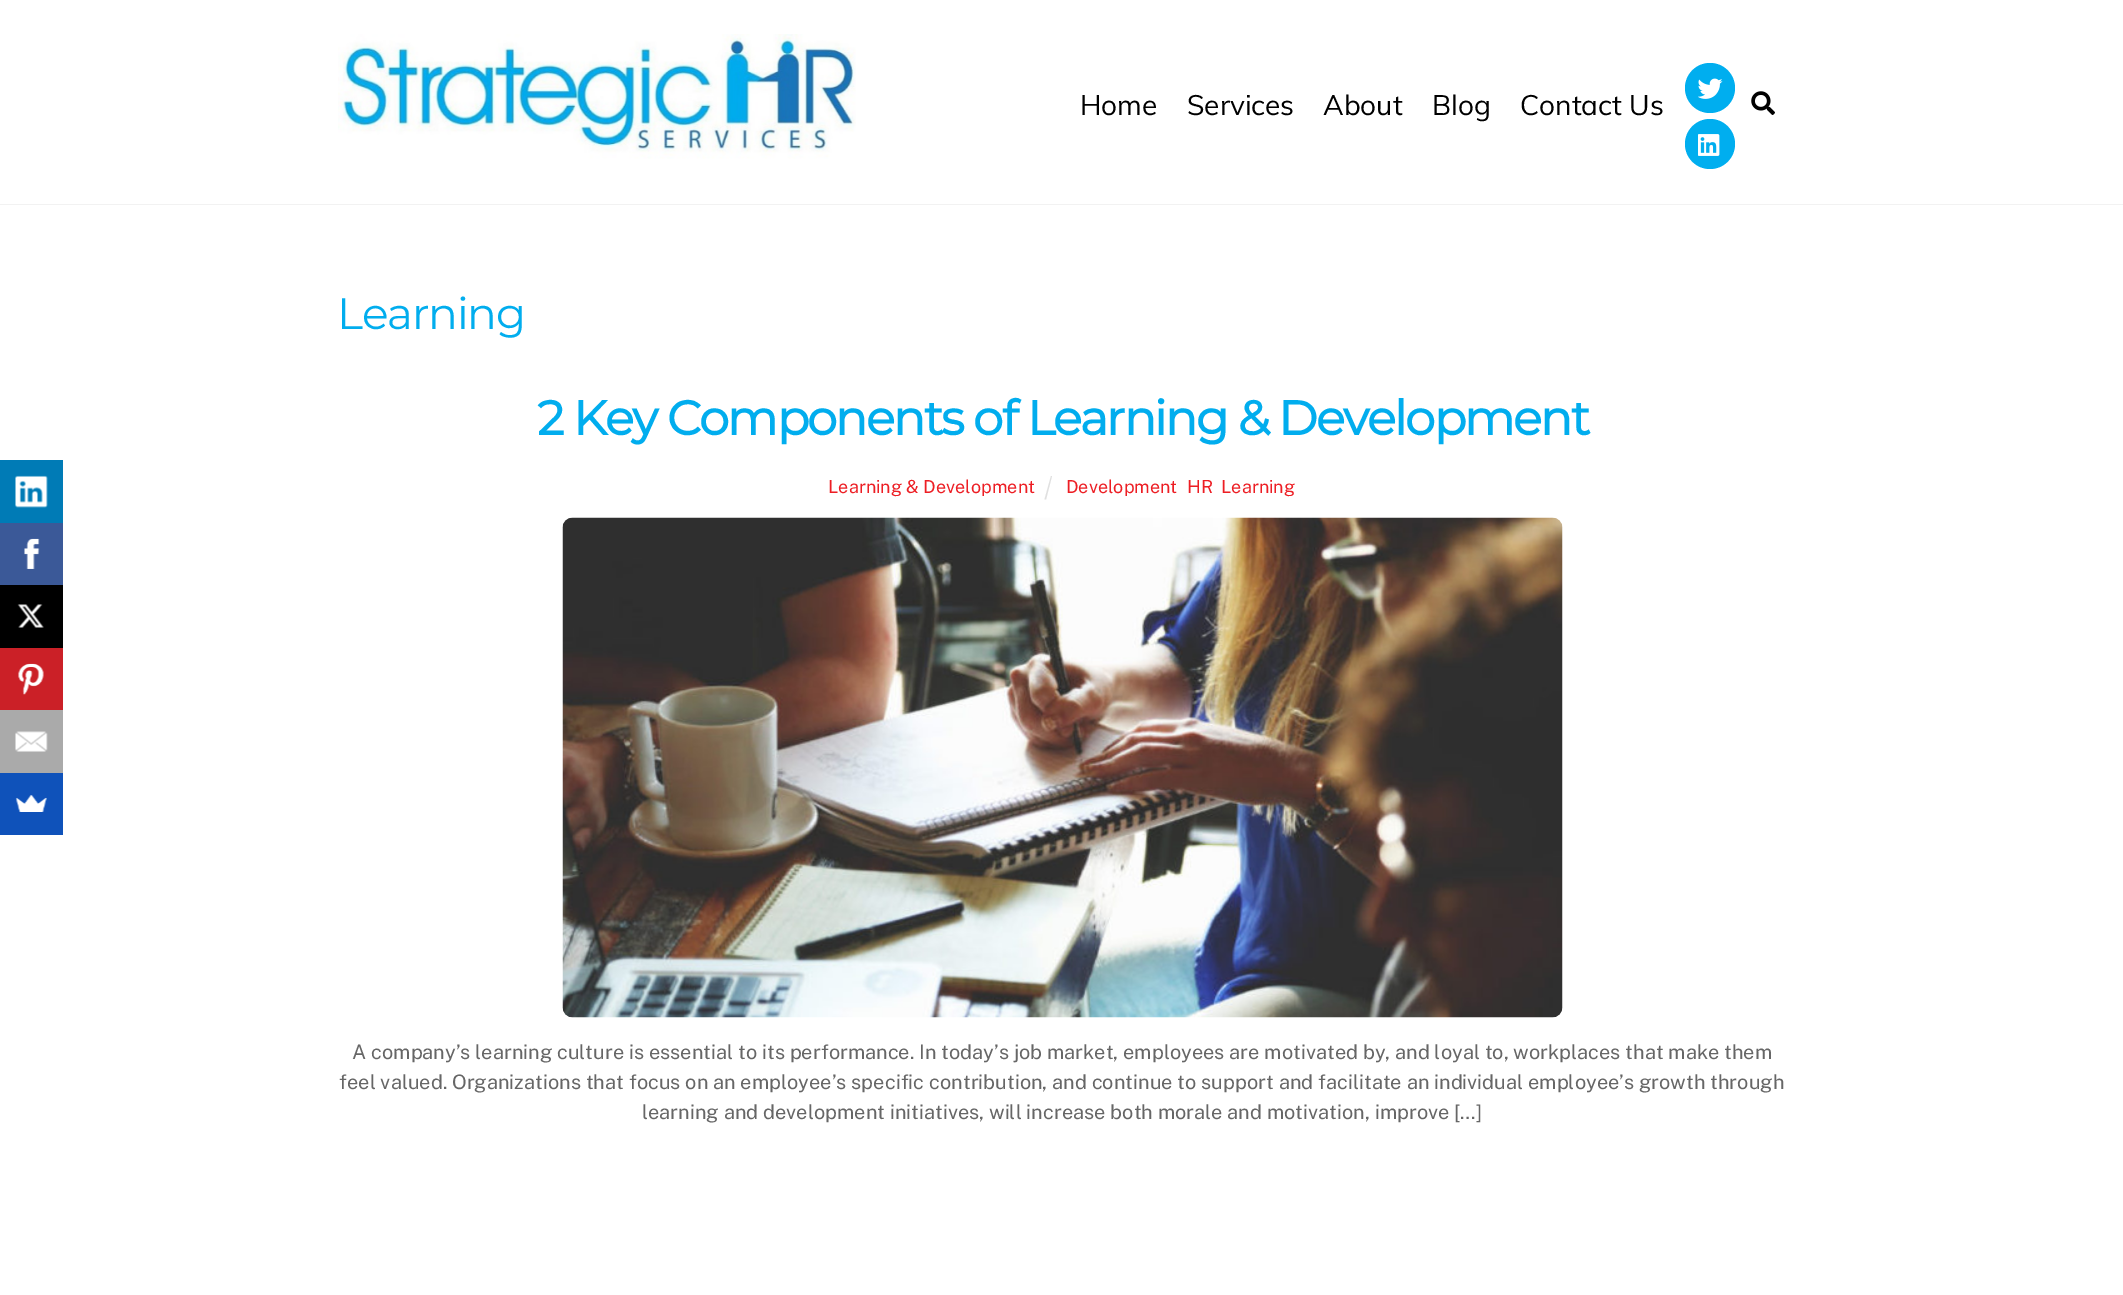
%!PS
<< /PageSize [2123 1295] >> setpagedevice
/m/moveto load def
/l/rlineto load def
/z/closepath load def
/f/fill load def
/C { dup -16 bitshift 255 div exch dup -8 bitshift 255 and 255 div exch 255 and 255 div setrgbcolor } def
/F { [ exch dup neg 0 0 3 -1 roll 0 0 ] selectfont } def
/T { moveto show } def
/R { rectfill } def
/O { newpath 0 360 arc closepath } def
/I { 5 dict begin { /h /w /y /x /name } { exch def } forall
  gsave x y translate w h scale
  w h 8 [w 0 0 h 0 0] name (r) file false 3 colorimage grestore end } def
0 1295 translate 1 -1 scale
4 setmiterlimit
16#FFFFFF C
0 0 2123 1295 R
16#007BB6 C
0 460 63 63 R
(1.rgb) 15 475 33 33 I
16#3B5998 C
0 523 63 62 R
(2.rgb) 24 538 16 31 I
16#000000 C
0 585 63 63 R
(3.rgb) 17 604 27 24 I
16#CB2027 C
0 648 63 62 R
(4.rgb) 18 663 26 32 I
16#AAAAAA C
0 710 63 63 R
(5.rgb) 15 731 33 21 I
16#0F52BA C
0 773 63 62 R
(6.rgb) 15 795 32 17 I
16#F2F2F2 C
0 204 2123 1 R
(7.rgb) 338 34 518 125 I
/Muli-Regular 28 F
16#000000 C
(Home) 1080 115 T
(Services) 1187 115 T
(About) 1323 115 T
(Blog) 1432 115 T
(Contact Us) 1520 115 T
16#00AEEF C
1710 88 25 O f
(8.rgb) 1698 78 25 21 I
1710 144 25 O f
(9.rgb) 1698 134 22 22 I
(10.rgb) 1751 91 24 24 I
/Montserrat-Thin 44 F
16#01ADEE C
337 329 m -1.25 0 (Learning) ashow
/Montserrat-Bold 48 F
537 435 m -1.9 0 (2 Key Components of Learning & Development) ashow
/PublicSans-Regular 18 F
16#ED1E24 C
(Learning & Development) 828 493 T
16#E0E0E0 C
1051 476 m 1 0 l -6 23.5 l -1.5 0 l z f
16#ED1E24 C
(Development) 1066 493 T
(HR) 1187 493 T
(Learning) 1221 493 T
(11.rgb) 562 517 1001 501 I
/PublicSans-Regular 20 F
16#666666 C
(A company’s learning culture is essential to its performance. In today’s job market, employees are motivated by, and loyal to, workplaces that make them) 352 1059 T
(feel valued. Organizations that focus on an employee’s specific contribution, and continue to support and facilitate an individual employee’s growth through) 339 1089 T
(learning and development initiatives, will increase both morale and motivation, improve […]) 642 1119 T
showpage
